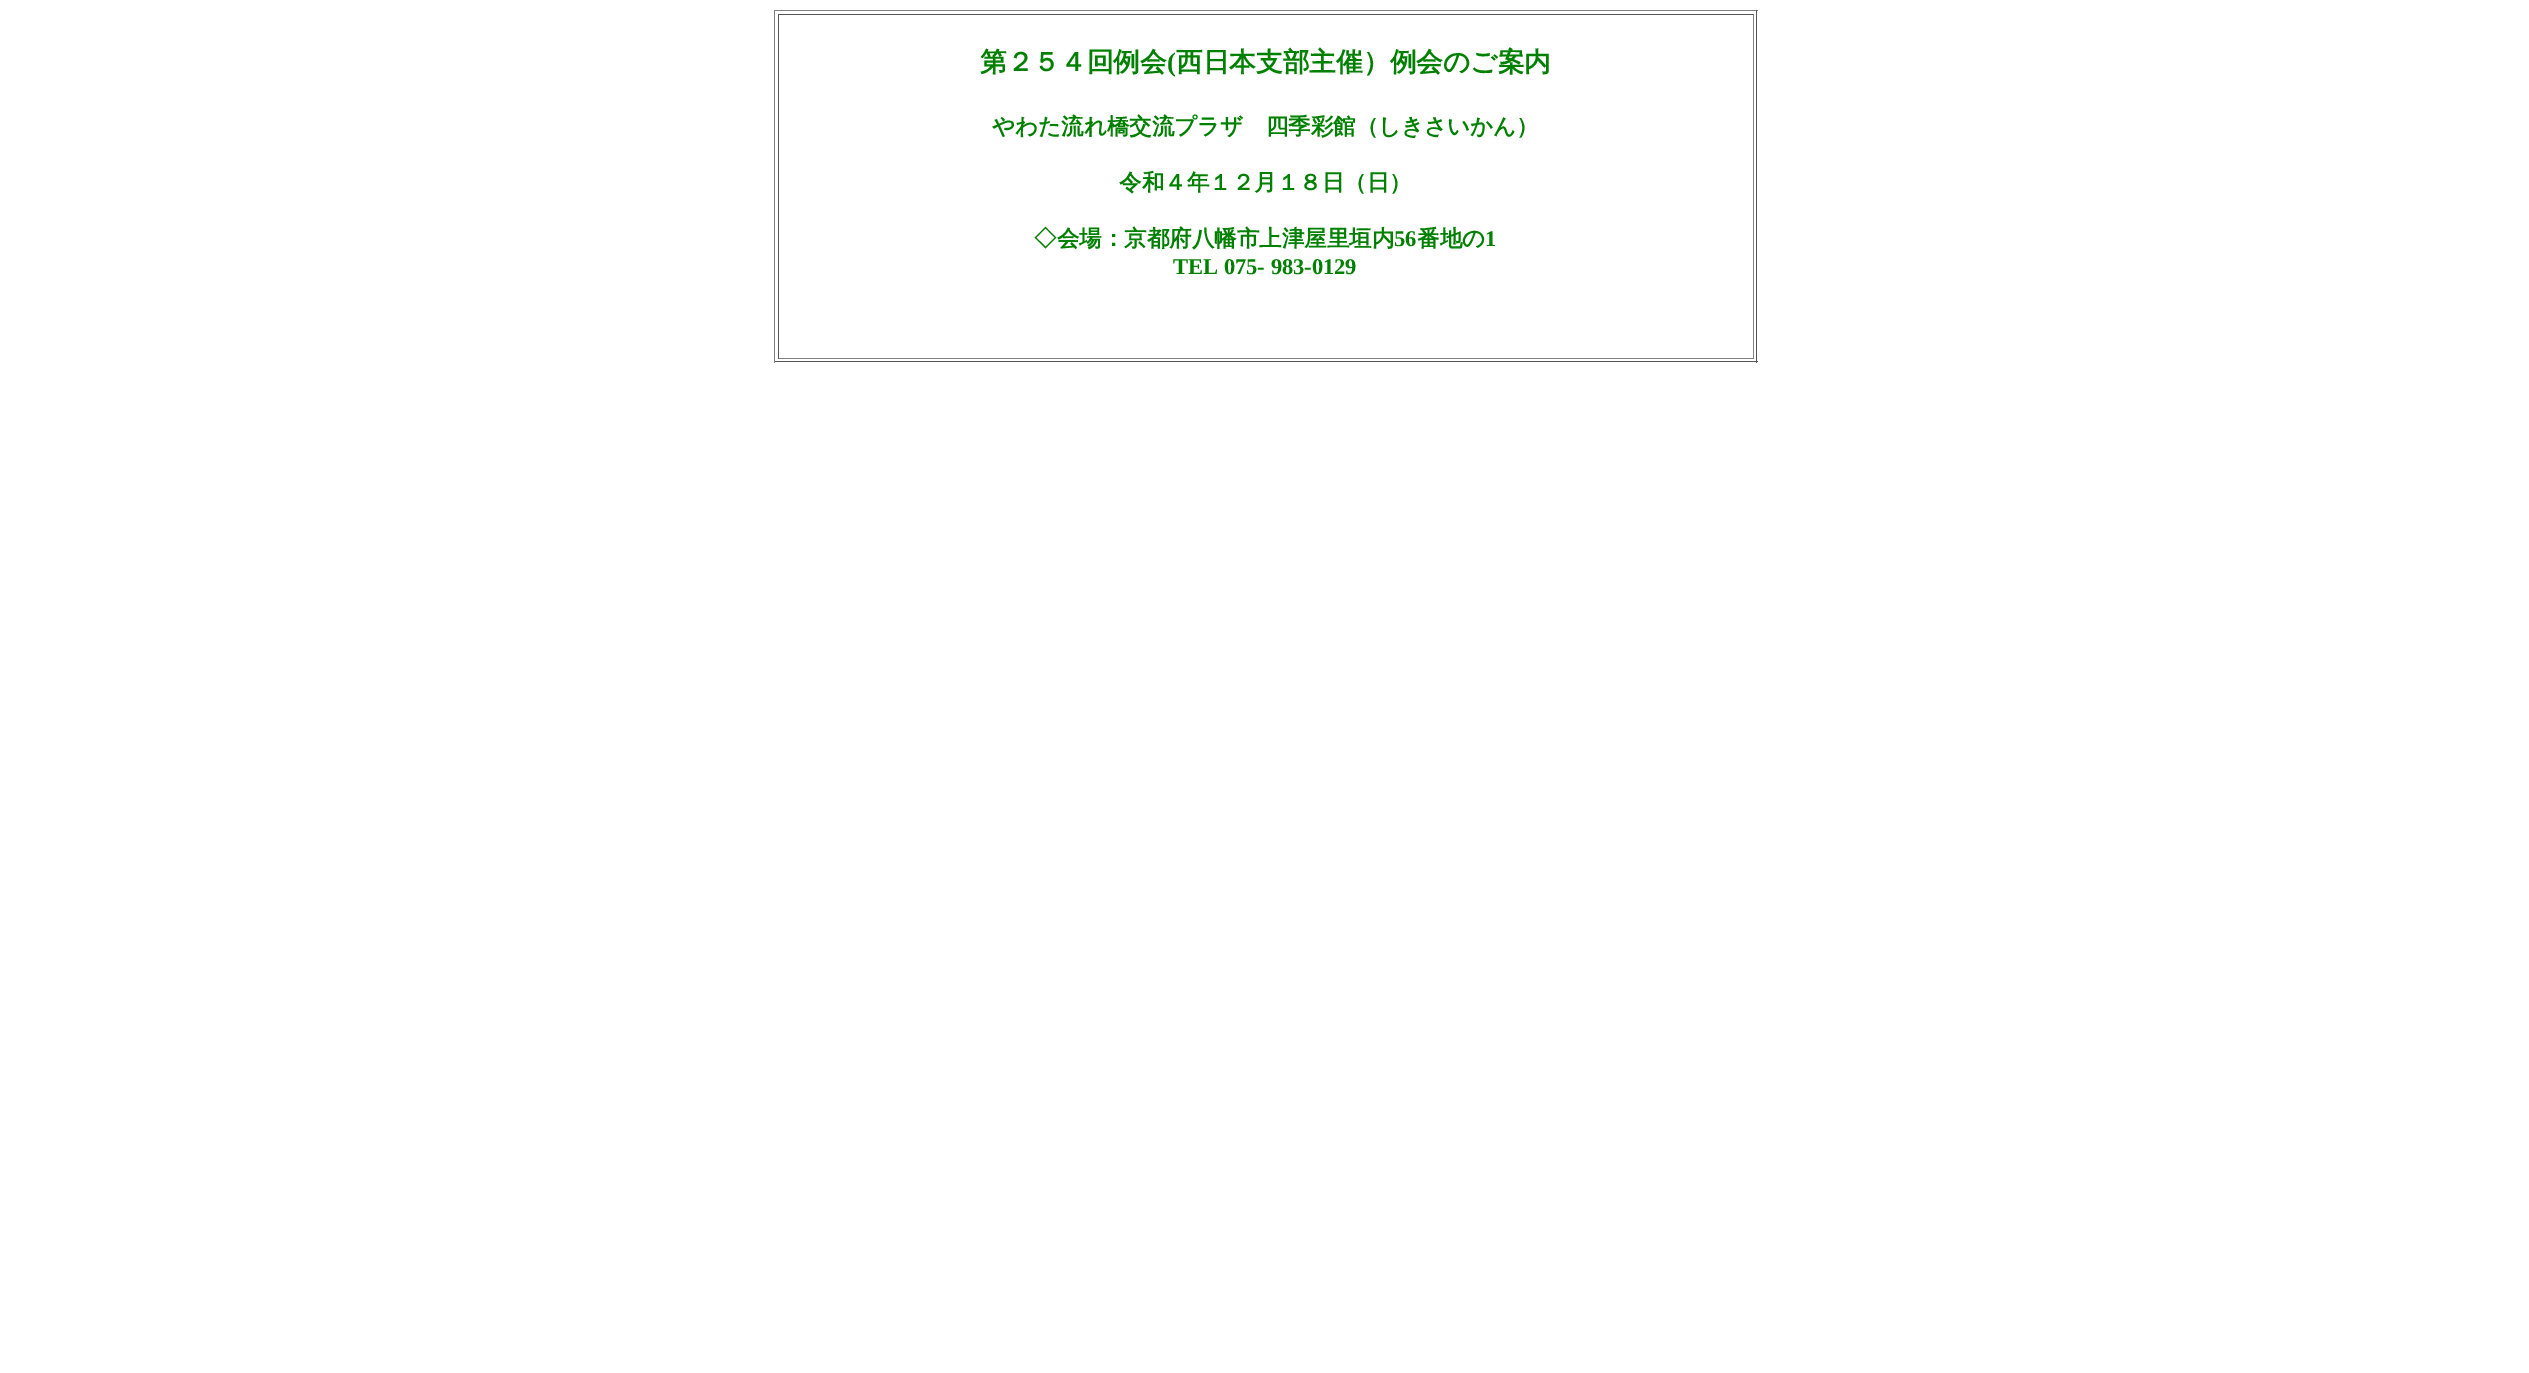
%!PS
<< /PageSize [2529 1373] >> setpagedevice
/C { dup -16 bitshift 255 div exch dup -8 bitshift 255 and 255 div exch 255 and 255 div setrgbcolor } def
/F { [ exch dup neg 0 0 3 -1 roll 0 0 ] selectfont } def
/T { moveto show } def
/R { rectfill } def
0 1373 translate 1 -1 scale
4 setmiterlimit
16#FFFFFF C
0 0 2529 1373 R
16#808080 C
774 10 984 1 R
16#555555 C
1756 10 1 353 R
774 361 984 1 R
16#808080 C
774 10 1 353 R
16#555555 C
778 14 976 1 R
16#808080 C
1753 14 1 345 R
778 358 976 1 R
16#555555 C
778 14 1 345 R
/WenQuanYiZenHei-Bold 26.7 F
16#008000 C
(第２５４回例会) 980 71 T
/LiberationSerif-Bold 26.7 F
(\() 1167 71 T
/WenQuanYiZenHei-Bold 26.7 F
(西日本支部主催）例会のご案内) 1176 71 T
/WenQuanYiZenHei-Bold 22.5 F
(やわた流れ橋交流プラザ　四季彩館（しきさいかん）) 992 134 T
(令和４年１２月１８日（日）) 1119 190 T
(◇会場：京都府八幡市上津屋里垣内) 1034 246 T
/LiberationSerif-Bold 22.5 F
(56) 1394 246 T
/WenQuanYiZenHei-Bold 22.5 F
(番地の) 1417 246 T
/LiberationSerif-Bold 22.5 F
(1) 1485 246 T
(TEL 075- 983-0129) 1173 274 T
showpage
